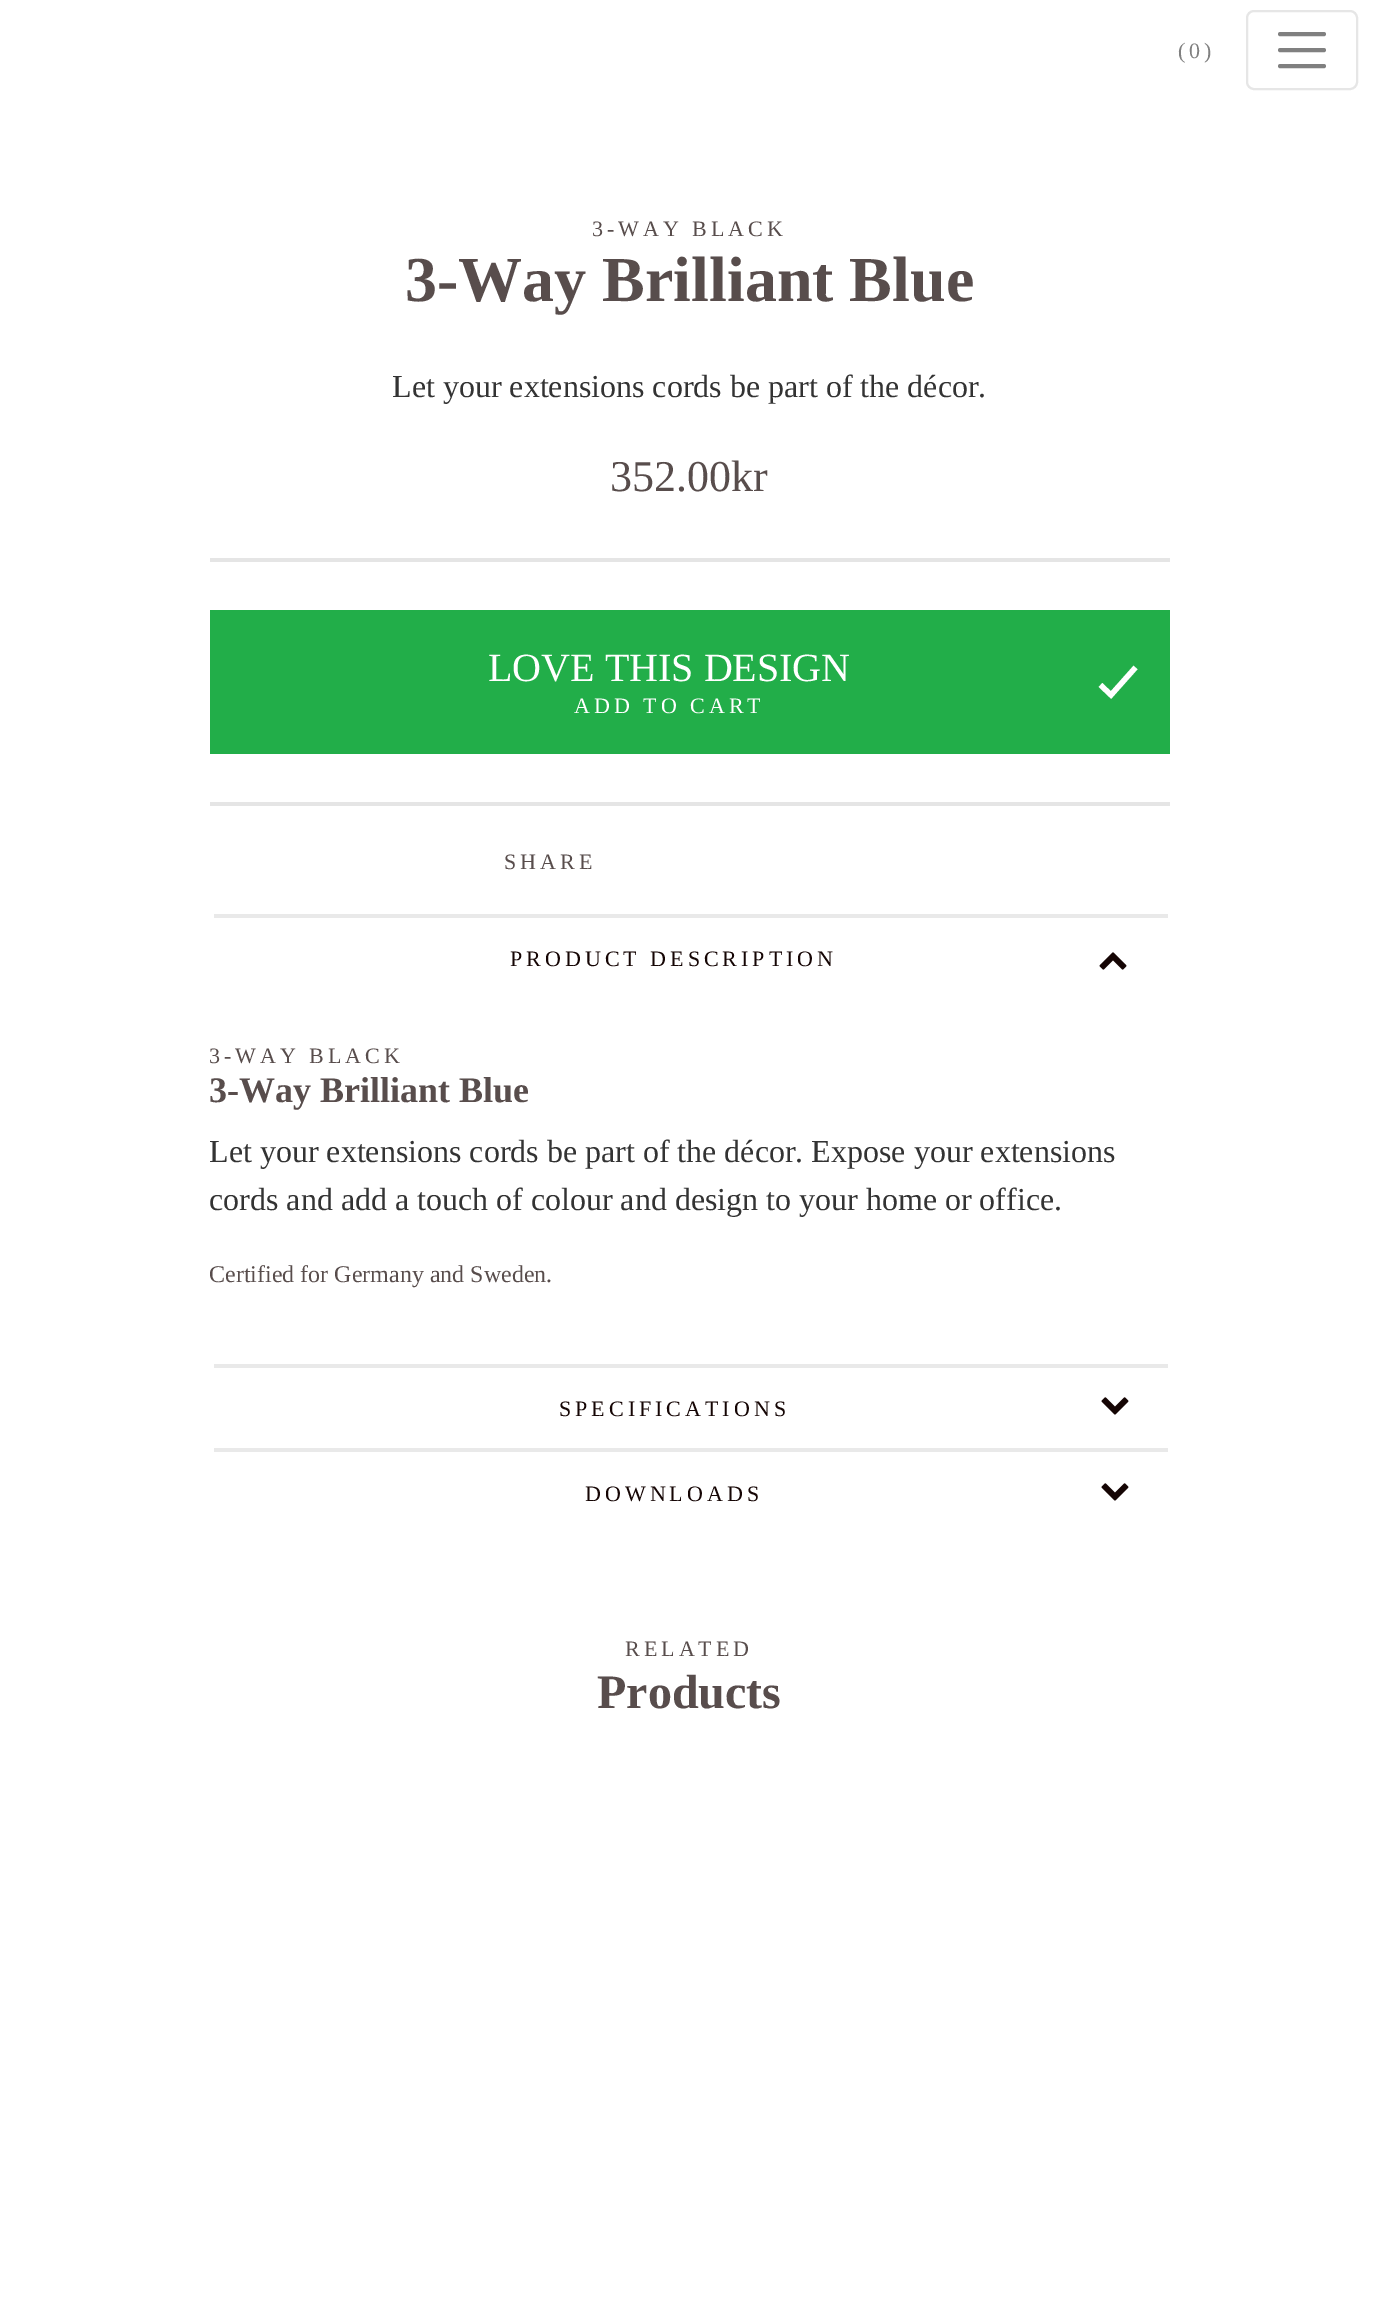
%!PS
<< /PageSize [1377 2300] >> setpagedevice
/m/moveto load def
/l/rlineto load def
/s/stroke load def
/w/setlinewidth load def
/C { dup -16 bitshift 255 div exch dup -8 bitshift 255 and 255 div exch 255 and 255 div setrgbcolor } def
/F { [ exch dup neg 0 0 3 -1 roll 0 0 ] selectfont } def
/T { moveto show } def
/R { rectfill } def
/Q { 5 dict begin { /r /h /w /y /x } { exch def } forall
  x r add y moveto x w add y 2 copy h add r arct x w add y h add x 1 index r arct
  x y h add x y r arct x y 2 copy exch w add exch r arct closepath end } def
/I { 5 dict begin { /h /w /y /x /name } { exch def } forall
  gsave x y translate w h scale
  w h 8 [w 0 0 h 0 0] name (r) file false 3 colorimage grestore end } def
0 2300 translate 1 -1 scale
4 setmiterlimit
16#FFFFFF C
0 0 1377 2300 R
/LiberationSerif-Regular 22 F
16#808080 C
1178 58 m 4 0 (\(0\)) ashow
16#E6E6E6 C
2 w
1247 11 110 78 7 Q s
16#808080 C
4 w
1 setlinecap
1280 34 m 44 0 l 1280 50 m 44 0 l 1280 66 m 44 0 l s
16#584D4C C
592 236 m 4 0 (3-WAY BLACK) ashow
/LiberationSerif-Bold 64 F
(3-Way Brilliant Blue) 405 301 T
/LiberationSerif-Regular 32 F
16#333333 C
(Let your extensions cords be part of the décor.) 392 397 T
16#E5E5E5 C
210 558 960 4 R
/LiberationSerif-Regular 44 F
16#584D4C C
(352.00kr) 610 491 T
16#22AE49 C
210 610 960 144 R
/LiberationSerif-Regular 40 F
16#FFFFFF C
(LOVE THIS DESIGN) 488 681 T
/LiberationSerif-Regular 22 F
574 713 m 4 0 (ADD TO CART) ashow
5.3 w
0 setlinecap
1100.5 685 m 10.5 10 l 24.5 -27.5 l s
16#E5E5E5 C
210 802 960 4 R
16#584D4C C
504 869 m 4 0 (SHARE) ashow
16#E9E9E9 C
214 914 954 4 R
16#150504 C
510 966 m 4 0 (PRODUCT DESCRIPTION) ashow
(1.rgb) 1099 952 28 18 I
16#584D4C C
209 1063 m 4 0 (3-WAY BLACK) ashow
/LiberationSerif-Bold 36 F
(3-Way Brilliant Blue) 209 1102 T
/LiberationSerif-Regular 32 F
16#333333 C
(Let your extensions cords be part of the décor. Expose your extensions) 209 1162 T
(cords and add a touch of colour and design to your home or office.) 209 1210 T
/LiberationSerif-Regular 24 F
16#584D4C C
(Certified for Germany and Sweden.) 209 1282 T
16#E9E9E9 C
214 1364 954 4 R
/LiberationSerif-Regular 22 F
16#150504 C
559 1416 m 4 0 (SPECIFICATIONS) ashow
(2.rgb) 1101 1397 28 18 I
16#E9E9E9 C
214 1448 954 4 R
16#150504 C
585 1501 m 4 0 (DOWNLOADS) ashow
(2.rgb) 1101 1483 28 18 I
16#584D4C C
625 1656 m 4 0 (RELATED) ashow
/LiberationSerif-Bold 48 F
(Products) 597 1708 T
showpage
